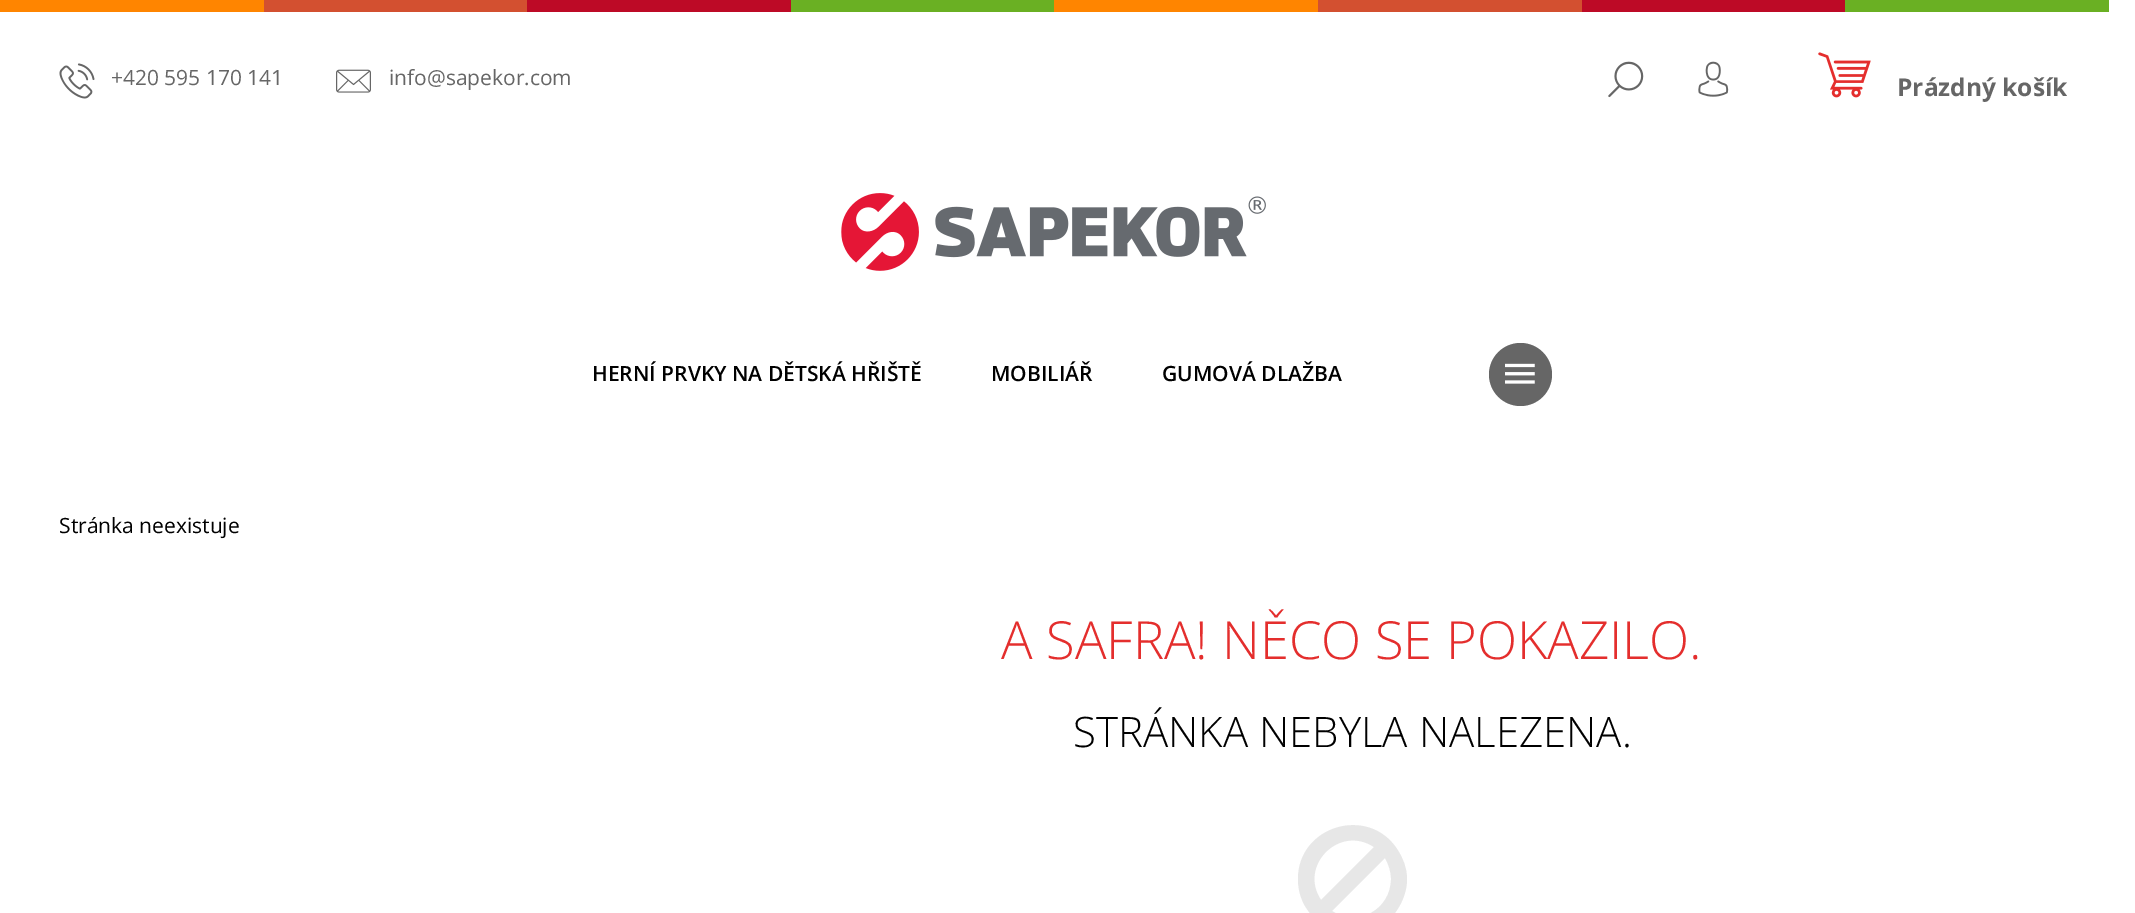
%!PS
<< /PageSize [2135 913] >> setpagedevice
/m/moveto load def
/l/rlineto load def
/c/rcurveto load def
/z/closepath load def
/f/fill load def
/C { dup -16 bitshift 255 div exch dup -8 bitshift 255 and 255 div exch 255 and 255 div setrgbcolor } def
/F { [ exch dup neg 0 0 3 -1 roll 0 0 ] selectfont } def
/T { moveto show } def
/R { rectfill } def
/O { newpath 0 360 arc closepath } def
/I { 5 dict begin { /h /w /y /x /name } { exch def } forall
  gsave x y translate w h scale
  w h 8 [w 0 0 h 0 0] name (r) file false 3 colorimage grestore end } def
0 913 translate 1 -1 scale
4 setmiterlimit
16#FFFFFF C
0 0 2135 913 R
16#FF8500 C
0 0 264 12 R
16#D35030 C
264 0 263 12 R
16#BD0A26 C
527 0 264 12 R
16#6AB023 C
791 0 263 12 R
16#FF8500 C
1054 0 264 12 R
16#D35030 C
1318 0 264 12 R
16#BD0A26 C
1582 0 263 12 R
16#6AB023 C
1845 0 264 12 R
(1.rgb) 59 63 36 36 I
/OpenSans-Regular 21 F
16#666666 C
(+420 595 170 141) 111 85 T
(2.rgb) 336 69 35 24 I
(info@sapekor.com) 389 85 T
(3.rgb) 1608 61 36 37 I
(4.rgb) 1698 61 31 36 I
(5.rgb) 1818 52 53 46 I
/OpenSans-Bold 24.5 F
(Prázdný košík) 1897 96 T
(6.rgb) 841 193 425 78 I
/OpenSans-SemiBold 21 F
16#000000 C
(HERNÍ PRVKY NA DĚTSKÁ HŘIŠTĚ) 592 381 T
(MOBILIÁŘ) 991 381 T
(GUMOVÁ DLAŽBA) 1162 381 T
16#666666 C
1520.5 374.5 31.5 O f
(7.rgb) 1505 363 30 21 I
/OpenSans-Regular 21 F
16#000000 C
(Stránka neexistuje) 59 533 T
/OpenSans-Light 52.5 F
16#E42E2D C
(A SAFRA! NĚCO SE POKAZILO.) 1001 659 T
/OpenSans-Light 42 F
16#000000 C
(STRÁNKA NEBYLA NALEZENA.) 1073 747 T
16#E7E7E7 C
1391 879 m 0 -7 -2 -14 -6 -21 c -53 53 l 25 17 59 -1 59 -32 c z 1321 900 m 53 -53 l -35 -23 -76 19 -53 53 c z 1407 879 m 0 11 -4 22 -10 31 c -29 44 -99 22 -99 -31 c 0 -53 70 -74 99 -30 c 6 9 10 19 10 30 c z f
showpage
